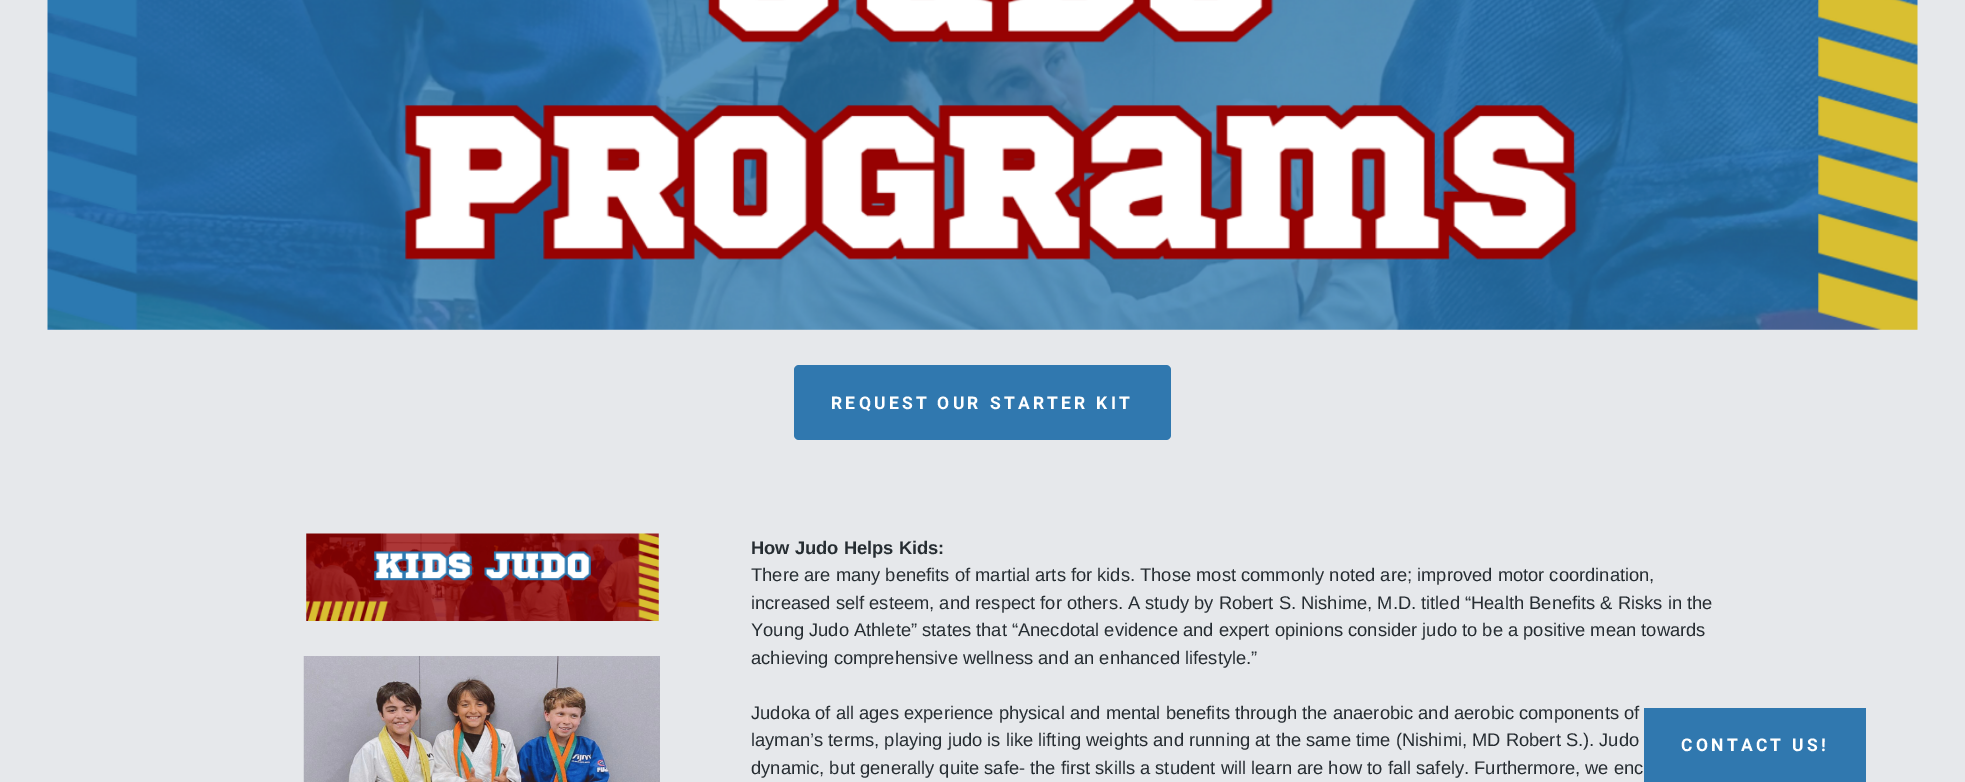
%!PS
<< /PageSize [1965 782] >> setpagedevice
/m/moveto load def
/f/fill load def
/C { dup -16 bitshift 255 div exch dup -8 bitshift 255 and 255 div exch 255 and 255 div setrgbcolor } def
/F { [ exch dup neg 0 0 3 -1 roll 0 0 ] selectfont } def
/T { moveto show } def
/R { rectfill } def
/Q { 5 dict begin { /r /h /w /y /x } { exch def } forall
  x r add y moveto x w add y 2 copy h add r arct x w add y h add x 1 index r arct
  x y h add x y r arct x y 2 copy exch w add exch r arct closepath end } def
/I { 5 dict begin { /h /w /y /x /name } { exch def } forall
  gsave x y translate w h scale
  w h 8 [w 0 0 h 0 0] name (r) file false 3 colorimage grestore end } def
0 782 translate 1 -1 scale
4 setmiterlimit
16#E6E8EB C
0 0 1965 782 R
(1.rgb) 47 0 1871 330 I
16#3078AF C
794 365 377 75 5 Q f
/Roboto-Bold 17.5 F
16#FFFFFF C
831 409 m 3.25 0 (REQUEST OUR STARTER KIT) ashow
(2.rgb) 306 533 353 88 I
(3.rgb) 303 656 357 126 I
/LiberationSans-Bold 18.33 F
16#262D32 C
(How Judo Helps Kids:) 751 554 T
/LiberationSans-Regular 18.33 F
(There are many benefits of martial arts for kids. Those most commonly noted are; improved motor coordination,) 751 581 T
(increased self esteem, and respect for others. A study by Robert S. Nishime, M.D. titled “Health Benefits & Risks in the) 751 609 T
(Young Judo Athlete” states that “Anecdotal evidence and expert opinions consider judo to be a positive mean towards) 751 636 T
(achieving comprehensive wellness and an enhanced lifestyle.”) 751 664 T
(Judoka of all ages experience physical and mental benefits through the anaerobic and aerobic components of) 751 719 T
(layman’s terms, playing judo is like lifting weights and running at the same time \(Nishimi, MD Robert S.\). Judo) 751 746 T
(dynamic, but generally quite safe- the first skills a student will learn are how to fall safely. Furthermore, we enc) 751 774 T
16#3078AF C
1644 708 222 74 R
/Roboto-Bold 17.5 F
16#FFFFFF C
1681 751 m 3.25 0 (CONTACT US!) ashow
showpage
